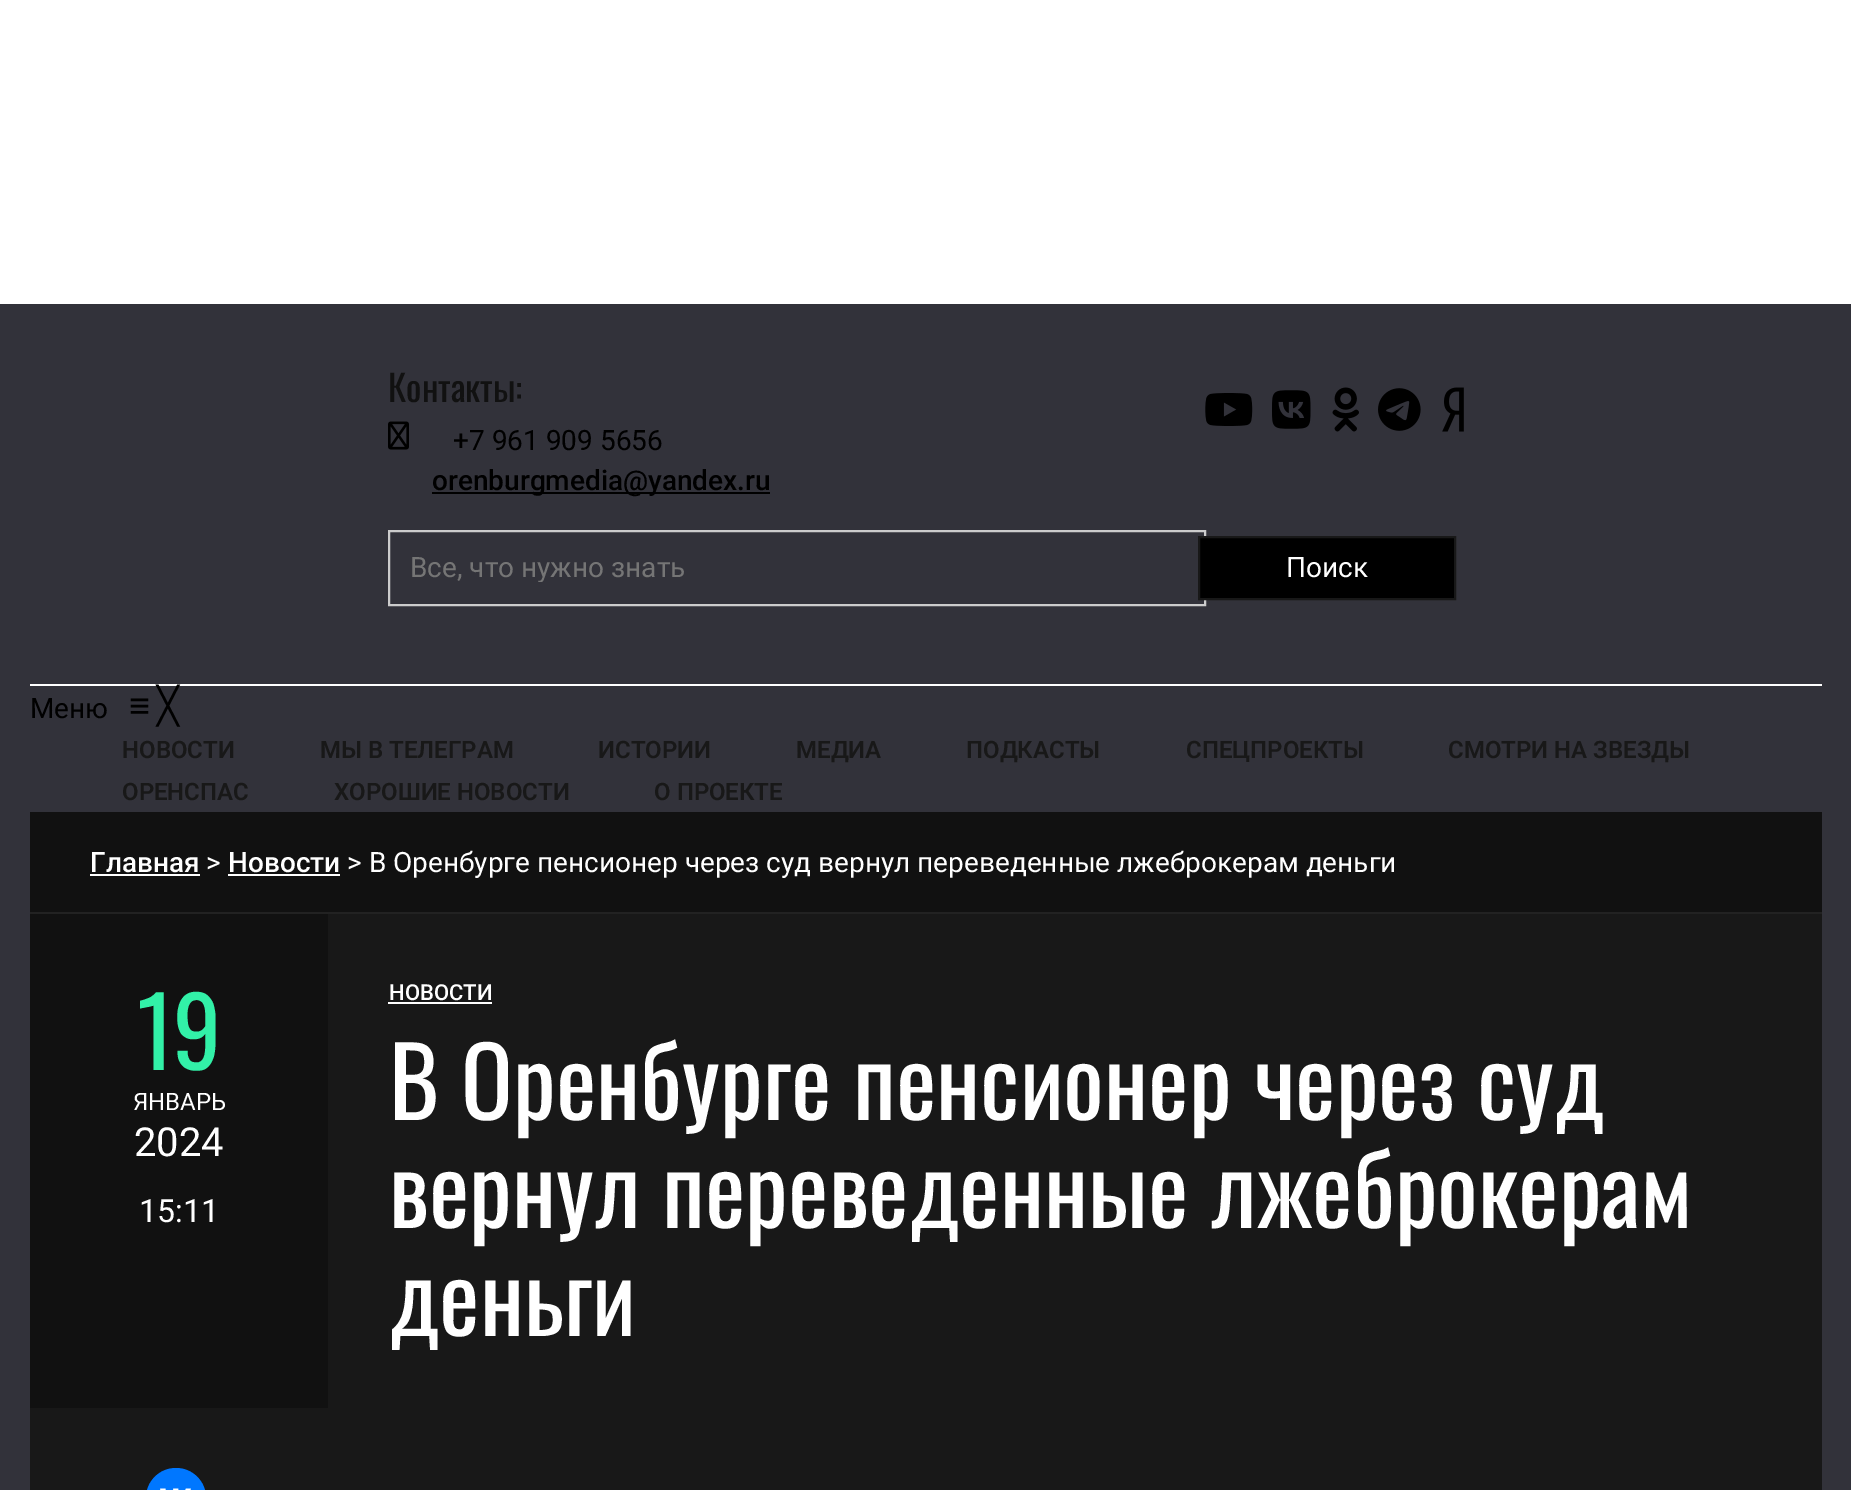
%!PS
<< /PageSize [1851 1490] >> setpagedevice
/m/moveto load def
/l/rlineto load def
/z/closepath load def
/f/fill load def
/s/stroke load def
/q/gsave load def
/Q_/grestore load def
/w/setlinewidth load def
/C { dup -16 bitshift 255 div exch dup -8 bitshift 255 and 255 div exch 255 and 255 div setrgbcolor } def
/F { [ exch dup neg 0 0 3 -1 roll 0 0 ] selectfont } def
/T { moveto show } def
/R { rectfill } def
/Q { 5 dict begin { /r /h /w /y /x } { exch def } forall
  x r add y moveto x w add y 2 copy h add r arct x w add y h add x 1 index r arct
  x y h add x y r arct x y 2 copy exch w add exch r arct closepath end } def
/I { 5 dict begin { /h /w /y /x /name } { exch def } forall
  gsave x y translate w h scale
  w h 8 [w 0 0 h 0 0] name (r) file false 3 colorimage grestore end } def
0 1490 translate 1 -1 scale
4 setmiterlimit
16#FFFFFF C
0 0 1851 1490 R
16#32323A C
0 304 1851 1186 R
/Oswald-Regular 36 F
16#111111 C
(Контакты:) 388 402 T
(1.rgb) 388 421 21 29 I
/Roboto-Regular 28 F
16#000000 C
(+7 961 909 5656) 453 450 T
432 492 338 2 R
/Roboto-Medium 28 F
(orenburgmedia@yandex.ru) 432 490 T
(2.rgb) 1205 393 48 33 I
(3.rgb) 1272 390 39 39 I
(4.rgb) 1332 387 27 45 I
(5.rgb) 1378 388 43 43 I
(6.rgb) 1442 387 22 45 I
16#CCCCCC C
2 w
389 531 816 74 rectstroke
q
410 550 746 32 rectclip
/Roboto-Regular 28 F
16#757575 C
(Все, что нужно знать) 410 577 T
Q_
16#000000 C
1199 537 m 256 0 l 0 62 l -256 0 l z q f Q_
16#181818 C
s
/Roboto-Regular 28 F
16#FFFFFF C
(Поиск) 1286 577 T
30 684 1792 2 R
16#000000 C
(Меню) 30 718 T
/LiberationSans-Regular 36 F
(≡) 129 718 T
/DejaVuSans-Regular 36 F
(╳) 157 718 T
/Roboto-SemiBold 24 F
16#181818 C
(НОВОСТИ) 122 758 T
(МЫ В ТЕЛЕГРАМ) 320 758 T
(ИСТОРИИ) 598 758 T
(МЕДИА) 796 758 T
(ПОДКАСТЫ) 966 758 T
(СПЕЦПРОЕКТЫ) 1186 758 T
(СМОТРИ НА ЗВЕЗДЫ) 1448 758 T
(ОРЕНСПАС) 122 800 T
(ХОРОШИЕ НОВОСТИ) 334 800 T
(О ПРОЕКТЕ) 654 800 T
16#222222 C
30 912 1792 2 R
16#111111 C
30 812 1792 100 R
/Roboto-Medium 28 F
16#FFFFFF C
(Главная) 90 872 T
90 874 110 2 R
/Roboto-Regular 28 F
(>) 206 872 T
/Roboto-Medium 28 F
(Новости) 228 872 T
228 874 112 2 R
/Roboto-Regular 28 F
(> В Оренбурге пенсионер через суд вернул переведенные лжеброкерам деньги) 347 872 T
16#111111 C
30 914 298 494 R
/Oswald-Regular 96 F
16#32F1A8 C
(19) 137 1070 T
/Roboto-Regular 24 F
16#FFFFFF C
(ЯНВАРЬ) 133 1110 T
/Roboto-Regular 40 F
(2024) 134 1156 T
/Roboto-Regular 32 F
(15:11) 139 1222 T
16#181818 C
328 914 1494 494 R
/Roboto-Medium 22 F
16#FFFFFF C
(НОВОСТИ) 389 1000 T
388 1002 104 2 R
/Oswald-Regular 96 F
(В Оренбурге пенсионер через суд) 389 1120 T
(вернул переведенные лжеброкерам) 389 1228 T
(деньги) 389 1336 T
16#181818 C
30 1408 1792 82 R
16#0077FF C
146 1468 60 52 30 Q f
(7.rgb) 160 1488 31 2 I
showpage
